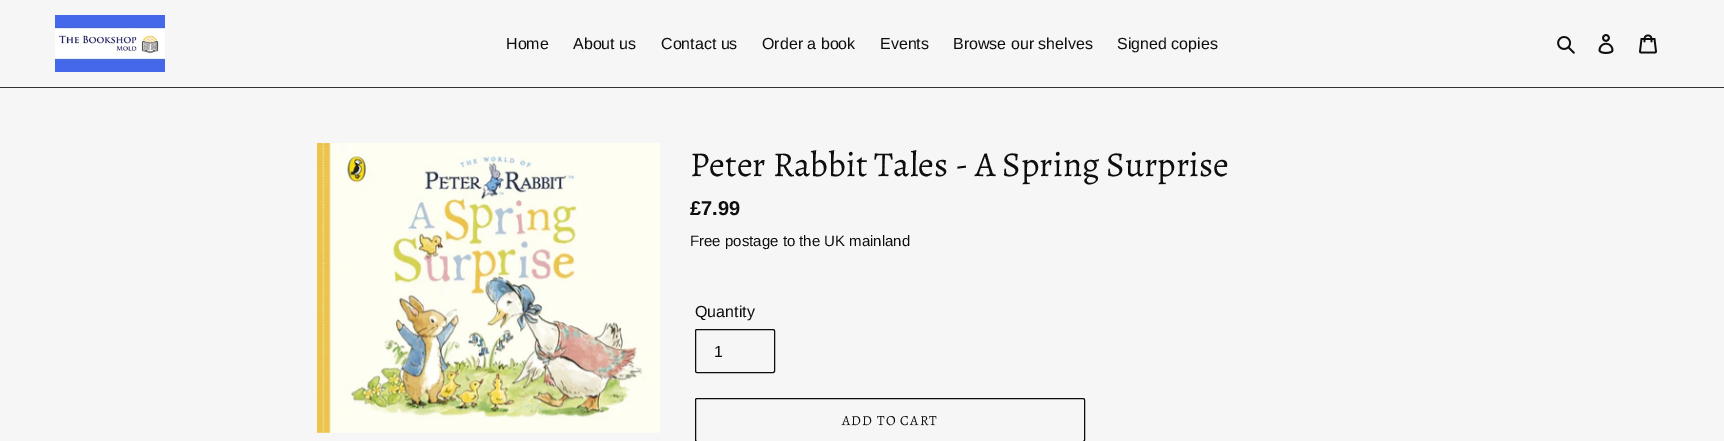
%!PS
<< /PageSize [1724 441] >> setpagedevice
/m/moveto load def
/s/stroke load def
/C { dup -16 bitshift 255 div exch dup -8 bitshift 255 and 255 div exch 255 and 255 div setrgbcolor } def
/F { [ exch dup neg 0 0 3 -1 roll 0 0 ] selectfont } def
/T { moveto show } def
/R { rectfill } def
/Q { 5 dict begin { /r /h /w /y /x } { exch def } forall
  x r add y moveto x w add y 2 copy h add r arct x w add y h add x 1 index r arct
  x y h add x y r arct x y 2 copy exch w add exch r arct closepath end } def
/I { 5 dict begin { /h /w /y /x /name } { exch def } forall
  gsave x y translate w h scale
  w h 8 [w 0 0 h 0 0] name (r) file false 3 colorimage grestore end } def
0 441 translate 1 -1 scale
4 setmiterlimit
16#F6F6F6 C
0 0 1724 441 R
16#333232 C
0 87 1724 1 R
(1.rgb) 55 15 110 57 I
/Arimo-Regular 16 F
16#0D0E0E C
(Home) 506 49 T
(About us) 573 49 T
(Contact us) 661 49 T
(Order a book) 762 49 T
(Events) 880 49 T
(Browse our shelves) 953 49 T
(Signed copies) 1117 49 T
(2.rgb) 1557 36 18 18 I
(3.rgb) 1598 34 16 20 I
(4.rgb) 1639 34 18 20 I
(5.rgb) 317 143 343 290 I
/Alegreya-Regular 35 F
(Peter Rabbit Tales - A Spring Surprise) 690 176 T
/Arimo-Bold 20 F
(£7.99) 690 215 T
/Arimo-Regular 15 F
(Free postage to the UK mainland) 690 246 T
/Arimo-Regular 16 F
(Quantity) 695 317 T
695.5 329.5 79 43 1.5 Q s
(1) 714 357 T
695.5 398.5 389 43 1.5 Q s
/Alegreya-Regular 14 F
842 425 m 1.1 0 (ADD TO CART) ashow
showpage
